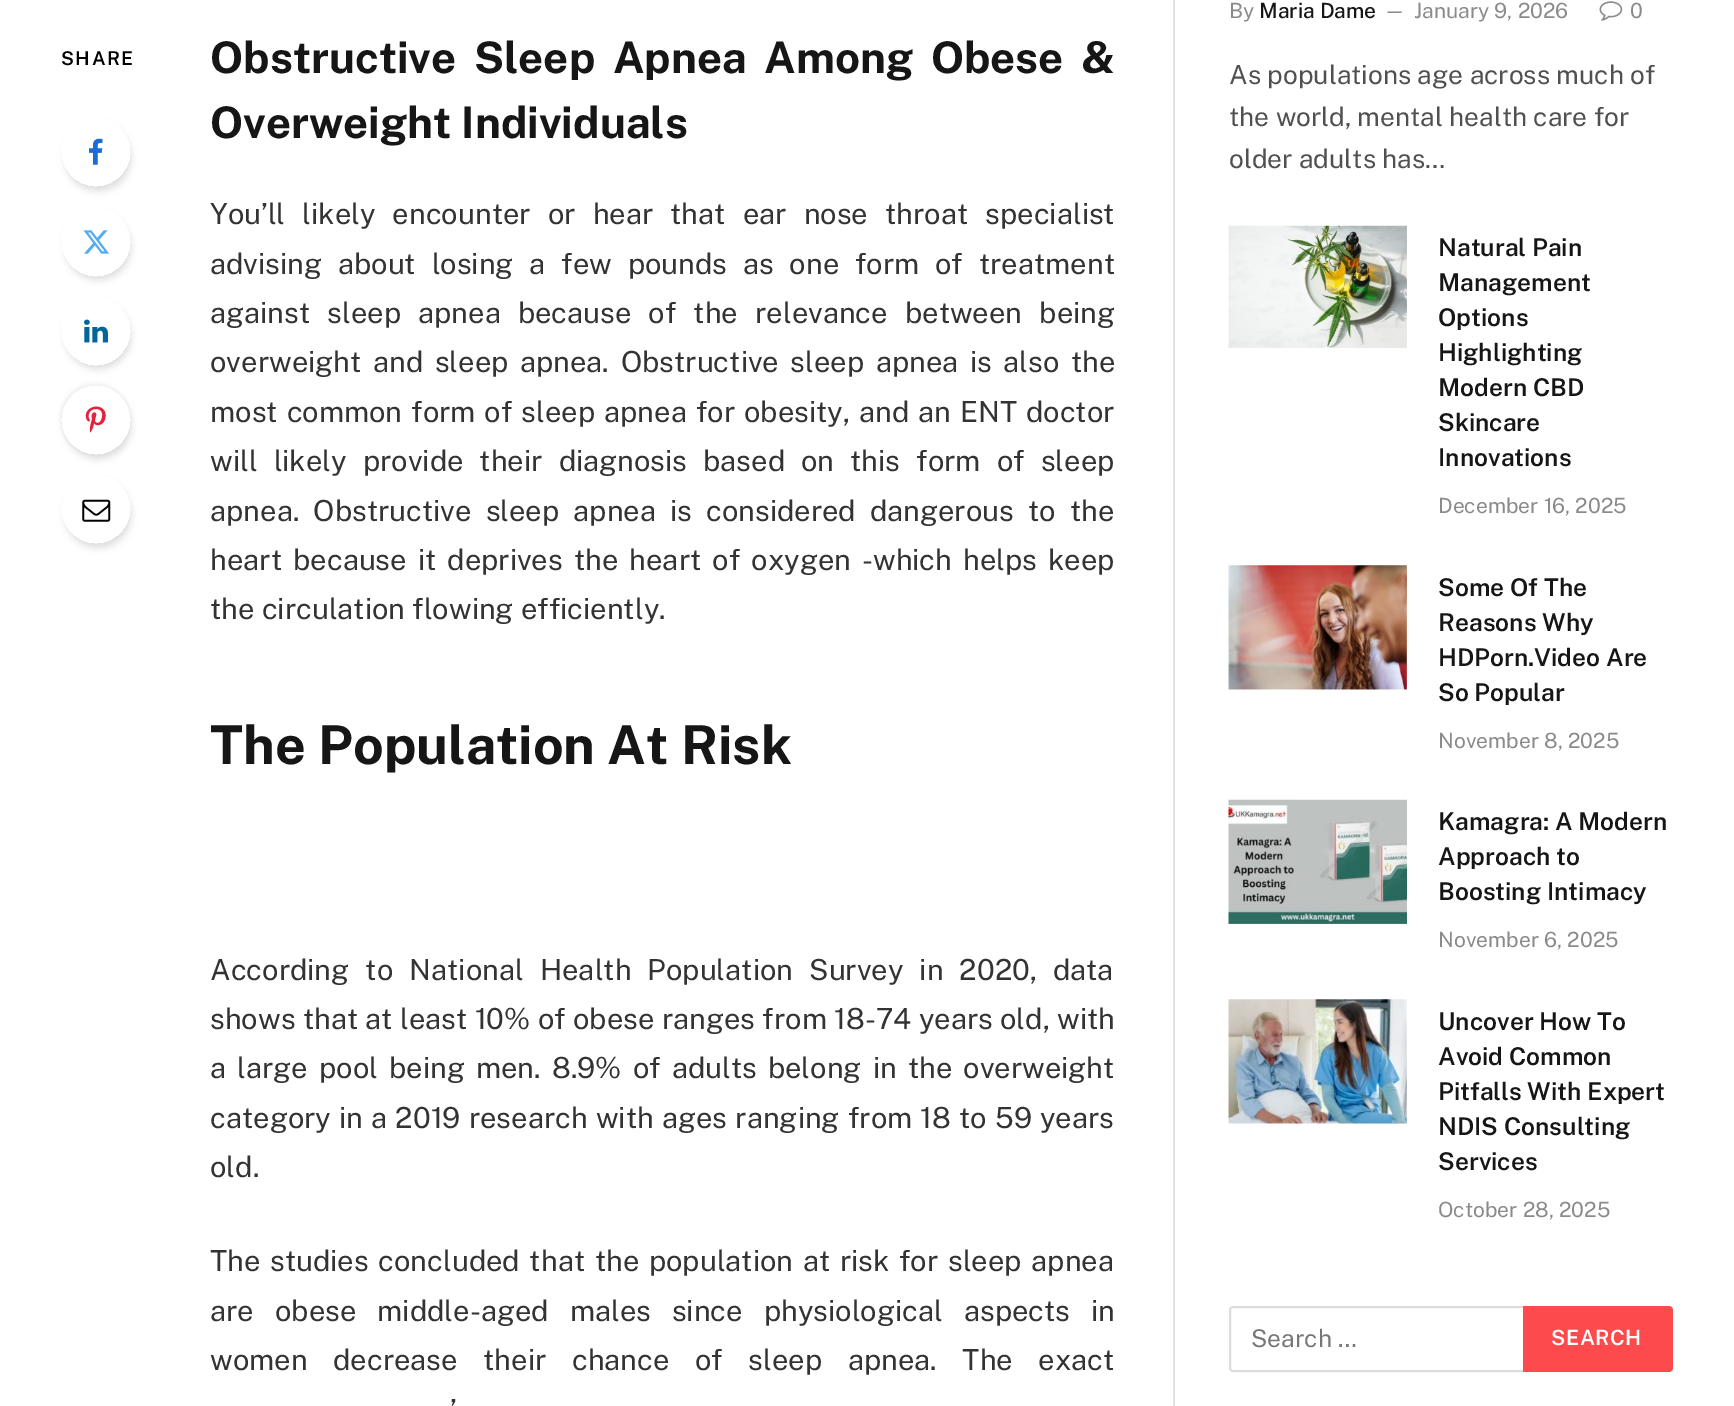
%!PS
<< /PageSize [1734 1406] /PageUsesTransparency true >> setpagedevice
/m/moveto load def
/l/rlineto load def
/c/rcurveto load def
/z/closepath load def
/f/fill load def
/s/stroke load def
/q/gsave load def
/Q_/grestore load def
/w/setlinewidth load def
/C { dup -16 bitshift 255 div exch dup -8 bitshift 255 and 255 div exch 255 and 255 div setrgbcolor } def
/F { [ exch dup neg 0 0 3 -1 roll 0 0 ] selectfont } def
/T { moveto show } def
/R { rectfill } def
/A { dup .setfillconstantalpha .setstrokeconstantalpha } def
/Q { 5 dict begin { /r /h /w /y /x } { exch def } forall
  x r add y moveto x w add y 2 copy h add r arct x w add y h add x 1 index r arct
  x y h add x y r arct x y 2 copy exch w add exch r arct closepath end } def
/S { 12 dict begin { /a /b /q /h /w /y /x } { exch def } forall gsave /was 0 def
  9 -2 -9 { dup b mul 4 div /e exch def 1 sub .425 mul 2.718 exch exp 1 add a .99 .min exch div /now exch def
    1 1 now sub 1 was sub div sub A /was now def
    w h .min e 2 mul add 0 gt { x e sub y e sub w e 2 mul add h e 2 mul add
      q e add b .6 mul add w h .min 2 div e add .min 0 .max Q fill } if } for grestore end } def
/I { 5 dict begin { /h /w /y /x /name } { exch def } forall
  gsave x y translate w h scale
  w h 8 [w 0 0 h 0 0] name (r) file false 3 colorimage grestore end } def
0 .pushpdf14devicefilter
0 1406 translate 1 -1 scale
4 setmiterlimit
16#FFFFFF C
0 0 1734 1406 R
/PublicSans-SemiBold 19 F
16#000000 C
61 65 m 1.5 0 (SHARE) ashow
q
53 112 m 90 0 l 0 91 l -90 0 l z 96 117 m 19.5 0 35 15.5 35 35 c 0 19.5 -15.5 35 -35 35 c -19.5 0 -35 -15.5 -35 -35 c 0 -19.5 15.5 -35 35 -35 c z eoclip newpath
65 124 66 67 33 3.5 .12 S
Q_
(1.rgb) 89 138 14 27 I
q
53 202 m 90 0 l 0 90 l -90 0 l z 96 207 m 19.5 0 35 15.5 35 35 c 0 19.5 -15.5 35 -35 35 c -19.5 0 -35 -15.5 -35 -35 c 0 -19.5 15.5 -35 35 -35 c z eoclip newpath
65 214 66 66 33 3.5 .12 S
Q_
(2.rgb) 83 230 27 24 I
q
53 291 m 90 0 l 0 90 l -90 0 l z 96 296 m 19.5 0 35 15.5 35 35 c 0 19.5 -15.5 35 -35 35 c -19.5 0 -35 -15.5 -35 -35 c 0 -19.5 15.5 -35 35 -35 c z eoclip newpath
65 303 66 66 33 3.5 .12 S
Q_
(3.rgb) 84 319 24 24 I
q
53 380 m 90 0 l 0 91 l -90 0 l z 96 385 m 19.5 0 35 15.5 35 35 c 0 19.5 -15.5 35 -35 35 c -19.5 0 -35 -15.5 -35 -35 c 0 -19.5 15.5 -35 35 -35 c z eoclip newpath
65 392 66 67 33 3.5 .12 S
Q_
q
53 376 m 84 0 l 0 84 l -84 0 l z 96 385 m 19.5 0 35 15.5 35 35 c 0 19.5 -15.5 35 -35 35 c -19.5 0 -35 -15.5 -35 -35 c 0 -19.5 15.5 -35 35 -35 c z eoclip newpath
60 383 70 70 35 2 .05 S
Q_
(4.rgb) 85 406 21 27 I
q
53 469 m 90 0 l 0 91 l -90 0 l z 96 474 m 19.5 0 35 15.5 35 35 c 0 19.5 -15.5 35 -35 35 c -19.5 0 -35 -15.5 -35 -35 c 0 -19.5 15.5 -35 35 -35 c z eoclip newpath
65 481 66 67 33 3.5 .12 S
Q_
(5.rgb) 82 499 29 23 I
/PublicSans-Bold 43.6 F
16#161616 C
210 73 m 7.75 0 32 (Obstructive Sleep Apnea Among Obese &) widthshow
(Overweight Individuals) 210 138 T
/PublicSans-Regular 29.05 F
16#333333 C
210 224 m 10 0 32 (You’ll likely encounter or hear that ear nose throat specialist) widthshow
210 274 m 8.75 0 32 (advising about losing a few pounds as one form of treatment) widthshow
210 323 m 10 0 32 (against sleep apnea because of the relevance between being) widthshow
210 372 m 4.5 0 32 (overweight and sleep apnea. Obstructive sleep apnea is also the) widthshow
210 422 m 1.9 0 32 (most common form of sleep apnea for obesity, and an ENT doctor) widthshow
210 471 m 9 0 32 (will likely provide their diagnosis based on this form of sleep) widthshow
210 521 m 7 0 32 (apnea. Obstructive sleep apnea is considered dangerous to the) widthshow
210 570 m 4 0 32 (heart because it deprives the heart of oxygen -which helps keep) widthshow
(the circulation flowing efficiently.) 210 619 T
/PublicSans-Bold 53.6 F
16#161616 C
(The Population At Risk) 210 764 T
/PublicSans-Regular 29.05 F
16#333333 C
210 980 m 9 0 32 (According to National Health Population Survey in 2020, data) widthshow
210 1029 m .25 0 32 (shows that at least 10% of obese ranges from 18-74 years old, with) widthshow
210 1078 m 4 0 32 (a large pool being men. 8.9% of adults belong in the overweight) widthshow
210 1128 m 1.1 0 32 (category in a 2019 research with ages ranging from 18 to 59 years) widthshow
(old.) 210 1177 T
210 1271 m 2.6 0 32 (The studies concluded that the population at risk for sleep apnea) widthshow
210 1321 m 14 0 32 (are obese middle-aged males since physiological aspects in) widthshow
210 1370 m 18.5 0 32 (women decrease their chance of sleep apnea. The exact) widthshow
450 1420 m 3 0 32 (’) widthshow
16#E2E2E2 C
1173 0 2 1406 R
/PublicSans-Regular 21 F
16#8A8A8A C
(By) 1229 18 T
/PublicSans-Medium 21 F
16#161616 C
(Maria Dame) 1259 18 T
/PublicSans-Regular 19 F
16#8A8A8A C
(—) 1384 17 T
/PublicSans-Regular 21 F
(January 9, 2026) 1414 18 T
(6.rgb) 1599 1 24 20 I
(0) 1630 18 T
/PublicSans-Regular 26.25 F
16#505050 C
(As populations age across much of) 1229 84 T
(the world, mental health care for) 1229 126 T
(older adults has…) 1229 168 T
(7.rgb) 1228 225 179 123 I
/PublicSans-SemiBold 24.5 F
16#161616 C
(Natural Pain) 1438 256 T
(Management) 1438 291 T
(Options) 1438 326 T
(Highlighting) 1438 361 T
(Modern CBD) 1438 396 T
(Skincare) 1438 431 T
(Innovations) 1438 466 T
/PublicSans-Regular 21 F
16#8A8A8A C
(December 16, 2025) 1438 513 T
(8.rgb) 1228 565 179 125 I
/PublicSans-SemiBold 24.5 F
16#161616 C
(Some Of The) 1438 596 T
(Reasons Why) 1438 631 T
(HDPorn.Video Are) 1438 666 T
(So Popular) 1438 701 T
/PublicSans-Regular 21 F
16#8A8A8A C
(November 8, 2025) 1438 748 T
(9.rgb) 1228 799 179 125 I
/PublicSans-SemiBold 24.5 F
16#161616 C
(Kamagra: A Modern) 1438 830 T
(Approach to) 1438 865 T
(Boosting Intimacy) 1438 900 T
/PublicSans-Regular 21 F
16#8A8A8A C
(November 6, 2025) 1438 947 T
(10.rgb) 1228 999 179 125 I
/PublicSans-SemiBold 24.5 F
16#161616 C
(Uncover How To) 1438 1030 T
(Avoid Common) 1438 1065 T
(Pitfalls With Expert) 1438 1100 T
(NDIS Consulting) 1438 1135 T
(Services) 1438 1170 T
/PublicSans-Regular 21 F
16#8A8A8A C
(October 28, 2025) 1438 1217 T
16#DDDDDD C
2 w
1230 1307 295 64 3 Q s
/PublicSans-Regular 24.5 F
16#777777 C
(Search …) 1251 1347 T
16#FC4A4D C
1523 1306 m 146 0 l 2 0 4 2 4 4 c 0 58 l 0 2 -2 4 -4 4 c -146 0 l z f
/PublicSans-SemiBold 21 F
16#FFFFFF C
1551 1345 m .5 0 (SEARCH) ashow
.poppdf14devicefilter showpage
